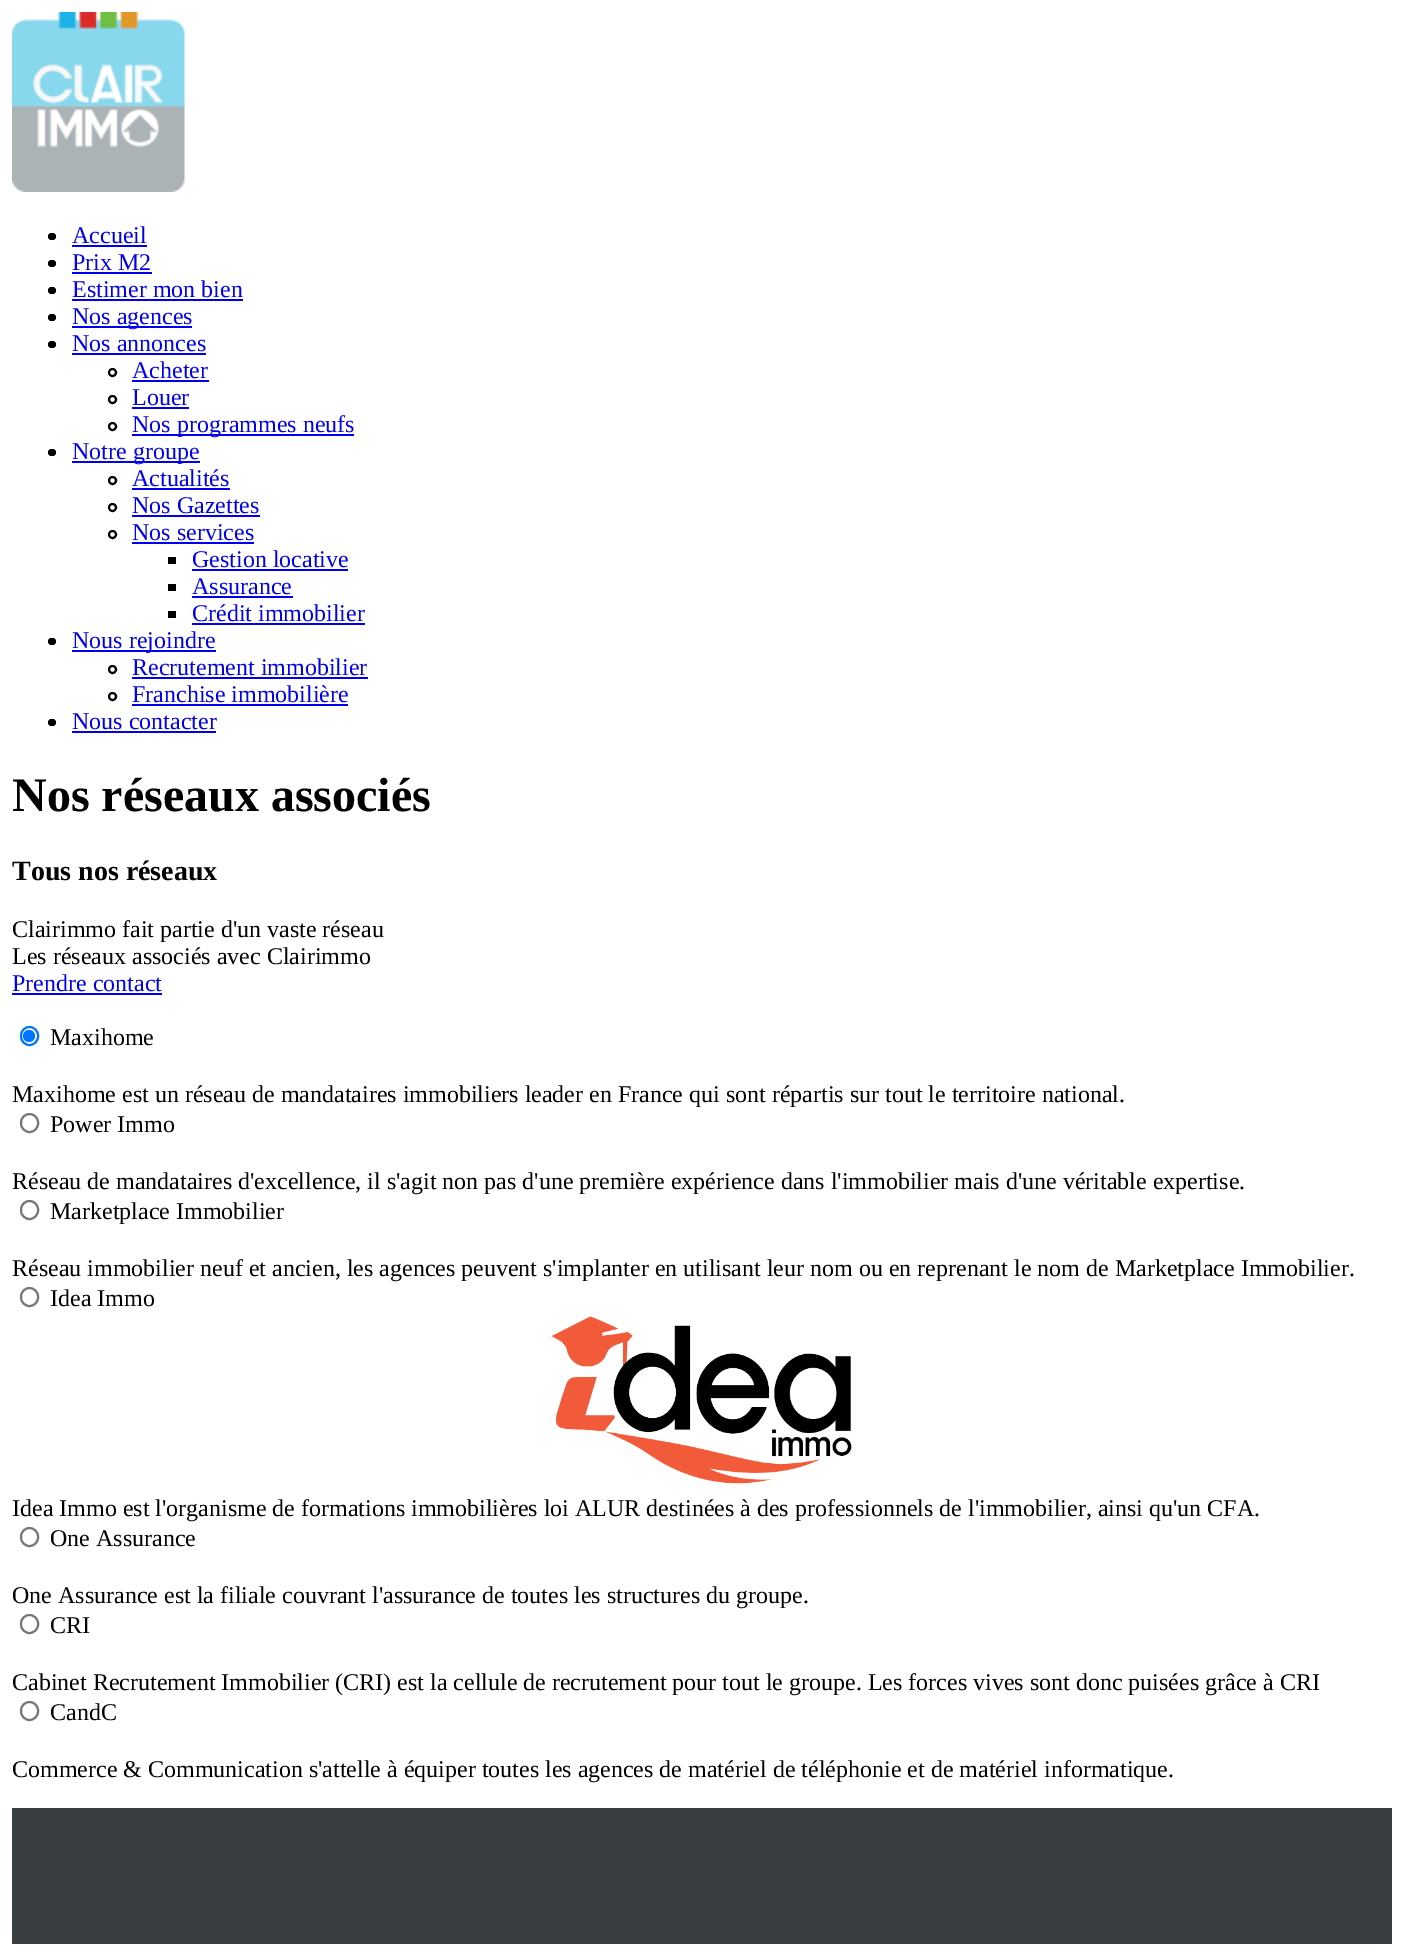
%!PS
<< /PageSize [1404 1950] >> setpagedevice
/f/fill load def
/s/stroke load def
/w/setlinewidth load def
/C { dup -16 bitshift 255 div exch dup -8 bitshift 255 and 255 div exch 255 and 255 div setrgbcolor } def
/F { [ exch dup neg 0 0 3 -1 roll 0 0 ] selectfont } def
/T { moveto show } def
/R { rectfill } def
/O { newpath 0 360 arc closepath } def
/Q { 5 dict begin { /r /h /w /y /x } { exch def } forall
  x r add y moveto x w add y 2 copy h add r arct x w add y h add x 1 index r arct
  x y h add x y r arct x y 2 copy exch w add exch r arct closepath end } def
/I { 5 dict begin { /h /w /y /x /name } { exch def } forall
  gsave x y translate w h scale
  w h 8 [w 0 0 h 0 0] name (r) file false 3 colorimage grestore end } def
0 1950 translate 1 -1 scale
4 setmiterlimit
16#FFFFFF C
0 0 1404 1950 R
(1.rgb) 12 12 173 180 I
16#000000 C
48 233 8 7 3.5 Q f
/LiberationSerif-Regular 24 F
16#0000EE C
(Accueil) 72 243 T
72 245 75 2 R
16#000000 C
48 260 8 7 3.5 Q f
16#0000EE C
(Prix M2) 72 270 T
72 272 80 2 R
16#000000 C
48 287 8 7 3.5 Q f
16#0000EE C
(Estimer mon bien) 72 297 T
72 299 171 2 R
16#000000 C
48 314 8 7 3.5 Q f
16#0000EE C
72 326 120 2 R
(Nos agences) 72 324 T
16#000000 C
48 341 8 7 3.5 Q f
16#0000EE C
(Nos annonces) 72 351 T
72 353 134 2 R
16#000000 C
2 w
112.5 372.5 3.5 O s
16#0000EE C
(Acheter) 132 378 T
132 380 77 2 R
16#000000 C
112.5 399.5 3.5 O s
16#0000EE C
(Louer) 132 405 T
132 407 57 2 R
16#000000 C
112.5 426.5 3.5 O s
16#0000EE C
132 434 222 2 R
(Nos programmes neufs) 132 432 T
16#000000 C
48 449 8 7 3.5 Q f
16#0000EE C
72 461 128 2 R
(Notre groupe) 72 459 T
16#000000 C
112.5 480.5 3.5 O s
16#0000EE C
(Actualités) 132 486 T
132 488 98 2 R
16#000000 C
112.5 507.5 3.5 O s
16#0000EE C
(Nos Gazettes) 132 513 T
132 515 128 2 R
16#000000 C
112.5 534.5 3.5 O s
16#0000EE C
(Nos services) 132 540 T
132 542 122 2 R
16#000000 C
168 557 8 7 R
16#0000EE C
(Gestion locative) 192 567 T
192 569 156 2 R
16#000000 C
168 584 8 7 R
16#0000EE C
(Assurance) 192 594 T
192 596 101 2 R
16#000000 C
168 611 8 7 R
16#0000EE C
(Crédit immobilier) 192 621 T
192 623 173 2 R
16#000000 C
48 638 8 7 3.5 Q f
16#0000EE C
72 650 144 2 R
(Nous rejoindre) 72 648 T
16#000000 C
112.5 669.5 3.5 O s
16#0000EE C
(Recrutement immobilier) 132 675 T
132 677 236 2 R
16#000000 C
112.5 696.5 3.5 O s
16#0000EE C
(Franchise immobilière) 132 702 T
132 704 216 2 R
16#000000 C
48 719 8 7 3.5 Q f
16#0000EE C
(Nous contacter) 72 729 T
72 731 144 2 R
/LiberationSerif-Bold 48 F
16#000000 C
(Nos réseaux associés) 12 811 T
/LiberationSerif-Bold 28 F
(Tous nos réseaux) 12 880 T
/LiberationSerif-Regular 24 F
(Clairimmo fait partie d'un vaste réseau) 12 937 T
(Les réseaux associés avec Clairimmo) 12 964 T
16#0000EE C
(Prendre contact) 12 991 T
12 993 150 2 R
16#0075FF C
21 1027 17 18 8.5 Q s
29 1036 6 O f
16#000000 C
(Maxihome) 50 1045 T
(Maxihome est un réseau de mandataires immobiliers leader en France qui sont répartis sur tout le territoire national.) 12 1102 T
16#767676 C
21 1114 17 18 8.5 Q s
16#000000 C
(Power Immo) 50 1132 T
(Réseau de mandataires d'excellence, il s'agit non pas d'une première expérience dans l'immobilier mais d'une véritable expertise.) 12 1189 T
16#767676 C
21 1201 17 18 8.5 Q s
16#000000 C
(Marketplace Immobilier) 50 1219 T
(Réseau immobilier neuf et ancien, les agences peuvent s'implanter en utilisant leur nom ou en reprenant le nom de Marketplace Immobilier.) 12 1276 T
16#767676 C
21 1288 17 18 8.5 Q s
16#000000 C
(Idea Immo) 50 1306 T
(2.rgb) 551 1316 301 168 I
(Idea Immo est l'organisme de formations immobilières loi ALUR destinées à des professionnels de l'immobilier, ainsi qu'un CFA.) 12 1516 T
16#767676 C
21 1528 17 18 8.5 Q s
16#000000 C
(One Assurance) 50 1546 T
(One Assurance est la filiale couvrant l'assurance de toutes les structures du groupe.) 12 1603 T
16#767676 C
21 1615 17 18 8.5 Q s
16#000000 C
(CRI) 50 1633 T
(Cabinet Recrutement Immobilier \(CRI\) est la cellule de recrutement pour tout le groupe. Les forces vives sont donc puisées grâce à CRI) 12 1690 T
16#767676 C
21 1702 17 18 8.5 Q s
16#000000 C
(CandC) 50 1720 T
(Commerce & Communication s'attelle à équiper toutes les agences de matériel de téléphonie et de matériel informatique.) 12 1777 T
16#383E42 C
12 1808 1380 136 R
showpage
